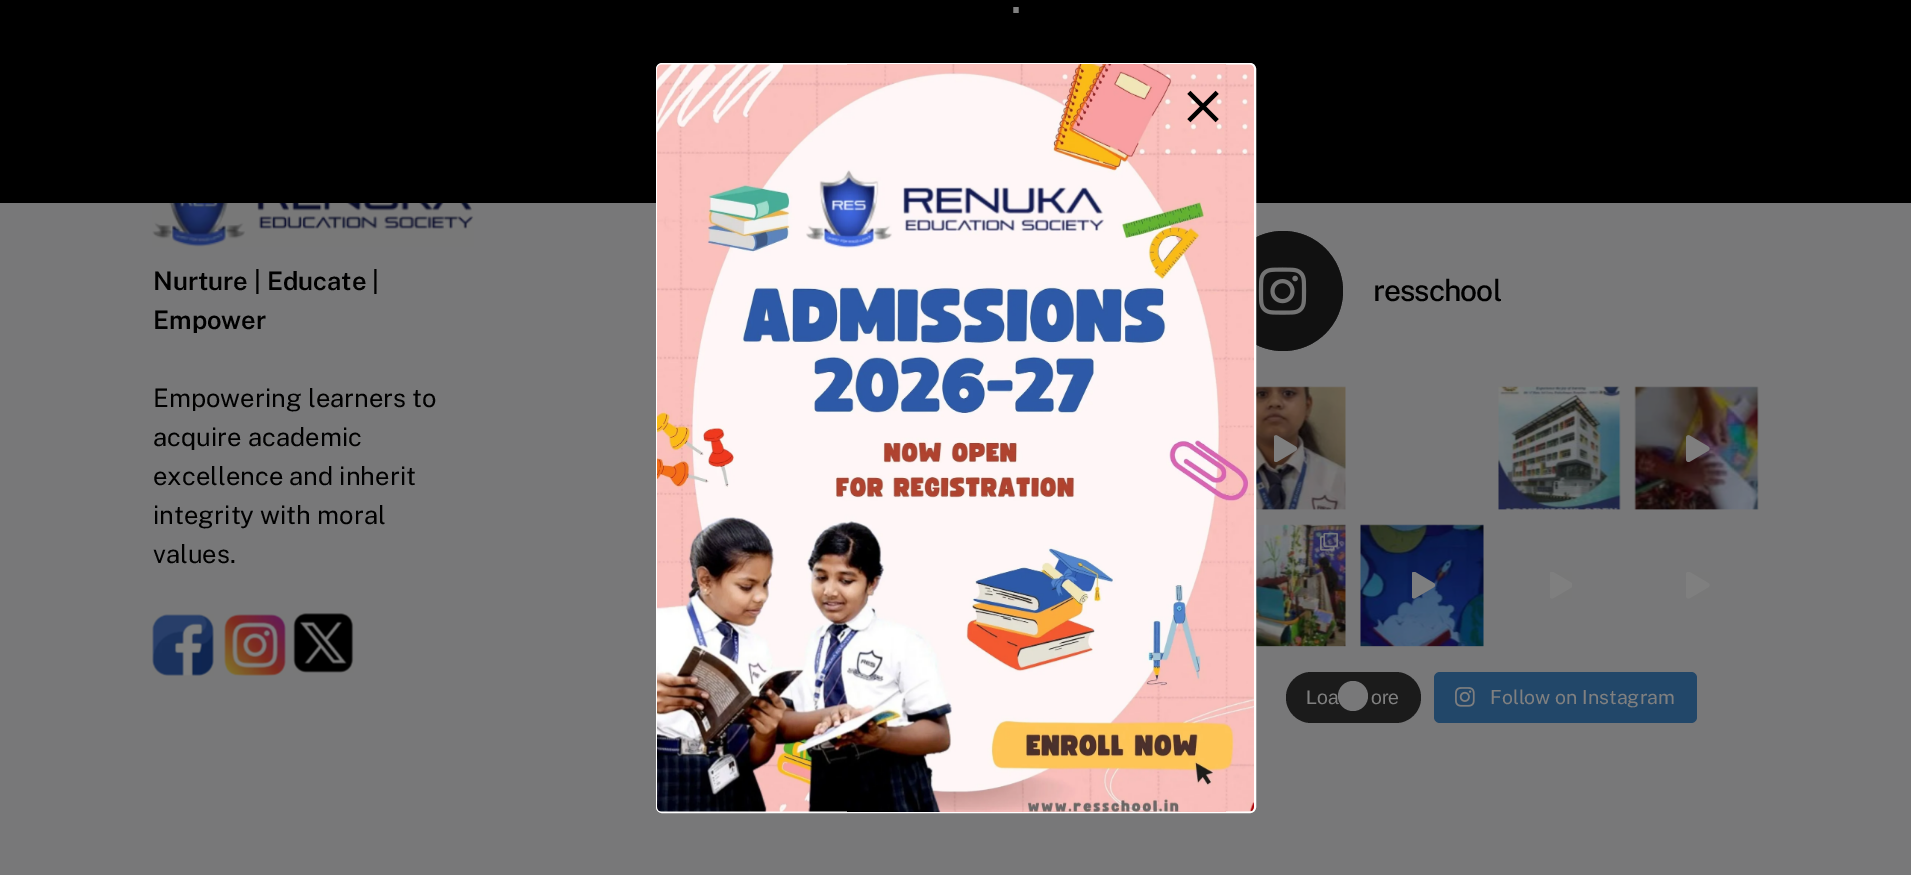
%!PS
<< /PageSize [1911 875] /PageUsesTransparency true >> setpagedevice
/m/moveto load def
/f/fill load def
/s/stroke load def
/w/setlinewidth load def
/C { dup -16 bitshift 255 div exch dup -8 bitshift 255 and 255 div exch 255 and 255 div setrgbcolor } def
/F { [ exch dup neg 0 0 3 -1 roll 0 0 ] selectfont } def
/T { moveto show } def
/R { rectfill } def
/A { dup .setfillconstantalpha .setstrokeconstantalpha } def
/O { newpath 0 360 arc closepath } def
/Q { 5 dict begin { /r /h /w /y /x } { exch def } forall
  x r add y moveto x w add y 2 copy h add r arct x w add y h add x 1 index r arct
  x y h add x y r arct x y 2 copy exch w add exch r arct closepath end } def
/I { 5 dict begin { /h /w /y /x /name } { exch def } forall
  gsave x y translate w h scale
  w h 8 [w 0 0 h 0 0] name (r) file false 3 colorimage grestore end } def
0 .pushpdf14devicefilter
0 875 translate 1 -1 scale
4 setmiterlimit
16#787879 C
0 0 1911 875 R
16#000000 C
0 0 1911 203 R
/PublicSans-Light 57 F
16#808080 C
1010 13 m -2 0 (.) ashow
(1.rgb) 152 203 322 44 I
/PublicSans-SemiBold 25.5 F
16#000000 C
(Nurture | Educate |) 153 290 T
(Empower) 153 329 T
/PublicSans-Regular 25.5 F
(Empowering learners to) 153 407 T
(acquire academic) 153 446 T
(excellence and inherit) 153 485 T
(integrity with moral) 153 524 T
(values.) 153 563 T
(2.rgb) 152 614 62 62 I
(3.rgb) 224 614 62 62 I
(4.rgb) 293 613 61 60 I
16#1B1B1B C
1283 291 60 O f
0.75 A
16#0E0E0E C
1283 291 60 O f
1 A
(5.rgb) 1258 267 49 48 I
/PublicSans-Medium 30 F
16#000000 C
1373 301 m -1 0 (resschool) ashow
(6.rgb) 1256 386 90 124 I
(7.rgb) 1274 435 24 27 I
(8.rgb) 1498 386 123 124 I
(9.rgb) 1634 386 125 124 I
(10.rgb) 1686 435 24 27 I
(11.rgb) 1256 524 90 123 I
(12.rgb) 1320 533 18 18 I
(13.rgb) 1360 524 124 123 I
(14.rgb) 1412 572 24 27 I
(15.rgb) 1550 572 22 27 I
(16.rgb) 1686 572 24 27 I
16#1B1B1B C
1286 672 135 51 25.5 Q f
/LiberationSans-Regular 19.5 F
16#808080 C
(Loa) 1306 704 T
16#787879 C
1353 696 15 O f
16#808080 C
(ore) 1371 704 T
16#224769 C
1434 672 263 51 6 Q f
(17.rgb) 1455 687 20 20 I
/PublicSans-Regular 19.5 F
16#808080 C
(Follow on Instagram) 1490 704 T
16#FFFFFF C
2 w
657 64 598 748 5 Q s
(18.rgb) 657 64 597 748 I
(19.rgb) 1187 90 32 33 I
.poppdf14devicefilter showpage
